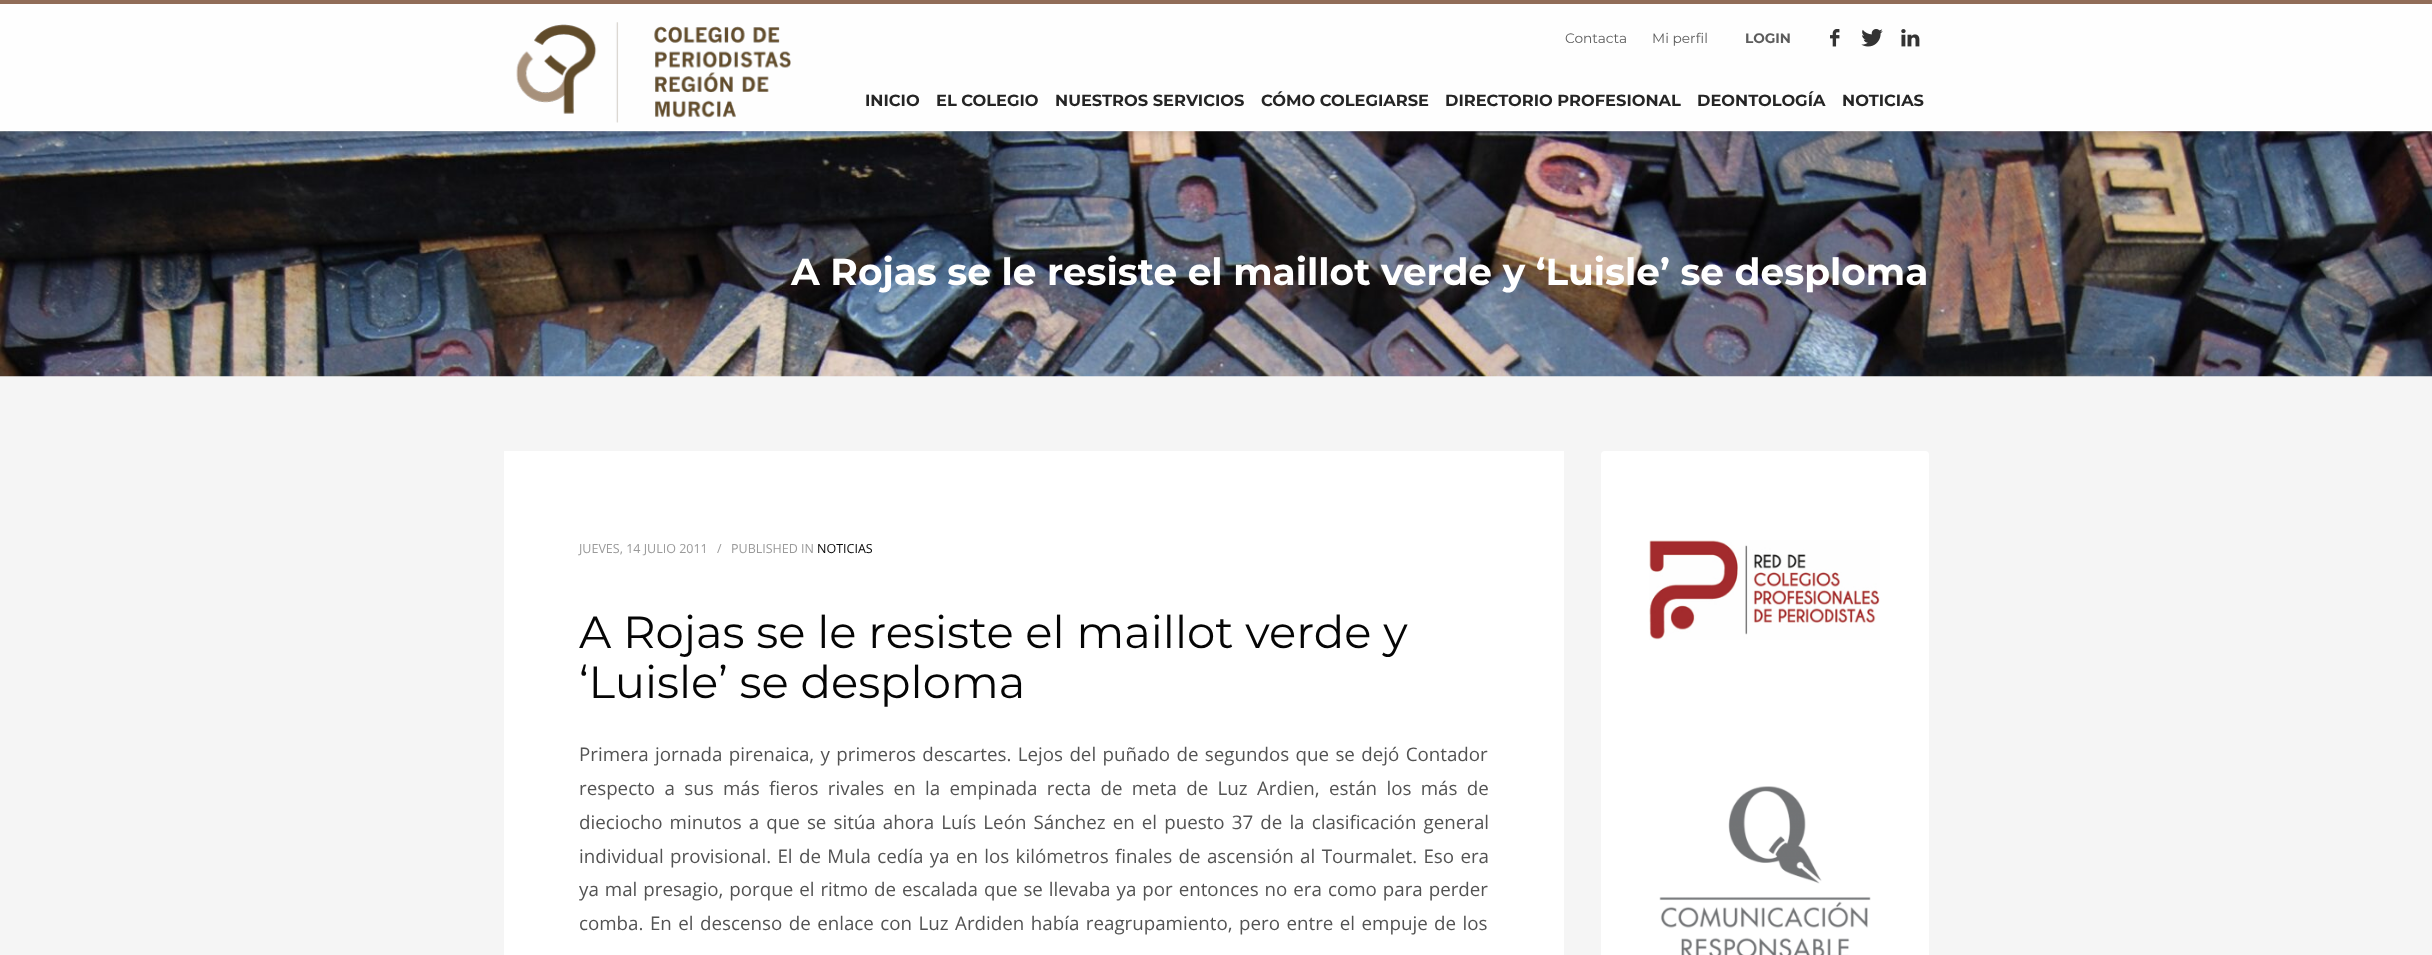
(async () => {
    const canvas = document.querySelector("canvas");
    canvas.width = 2432;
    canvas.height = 955;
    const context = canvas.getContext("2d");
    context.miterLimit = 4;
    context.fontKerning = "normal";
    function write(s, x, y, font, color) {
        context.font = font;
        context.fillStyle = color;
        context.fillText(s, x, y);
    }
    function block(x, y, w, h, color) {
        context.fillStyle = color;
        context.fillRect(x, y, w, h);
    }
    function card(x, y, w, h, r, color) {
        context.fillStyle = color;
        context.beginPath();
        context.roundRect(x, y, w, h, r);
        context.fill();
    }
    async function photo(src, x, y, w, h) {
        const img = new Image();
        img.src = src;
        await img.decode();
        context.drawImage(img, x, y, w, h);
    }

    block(0, 0, 2432, 955, "rgb(245, 245, 245)");
    await photo("media/5.png", 0, 131, 2432, 246);
    context.fillStyle = "rgba(0, 0, 0, 0.1)";
    context.filter = "blur(3px)";
    context.beginPath();
    context.rect(0, 4, 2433, 131);
    context.fill();
    context.filter = "none";
    block(0, 4, 2432, 127, "rgb(254, 254, 254)");
    block(0, 0, 2432, 4, "rgb(145, 109, 88)");
    await photo("media/1.png", 516, 22, 275, 101);
    write("Contacta", 1565, 43, "13.75px Montserrat", "rgb(92, 92, 92)");
    write("Mi perfil", 1652, 43, "13.75px Montserrat", "rgb(92, 92, 92)");
    write("LOGIN", 1745, 43, "bold 13.75px Montserrat", "rgb(92, 92, 92)");
    await photo("media/2.png", 1830, 29, 10, 18);
    await photo("media/3.png", 1861, 29, 22, 18);
    await photo("media/4.png", 1901, 29, 19, 18);
    write("INICIO", 865, 106, "bold 16.25px Montserrat", "rgb(37, 37, 37)");
    write("EL COLEGIO", 936, 106, "bold 16.25px Montserrat", "rgb(37, 37, 37)");
    write("NUESTROS SERVICIOS", 1055, 106, "bold 16.25px Montserrat", "rgb(37, 37, 37)");
    write("CÓMO COLEGIARSE", 1261, 106, "bold 16.25px Montserrat", "rgb(37, 37, 37)");
    write("DIRECTORIO PROFESIONAL", 1445, 106, "bold 16.25px Montserrat", "rgb(37, 37, 37)");
    write("DEONTOLOGÍA", 1697, 106, "bold 16.25px Montserrat", "rgb(37, 37, 37)");
    write("NOTICIAS", 1842, 106, "bold 16.25px Montserrat", "rgb(37, 37, 37)");
    write("A Rojas se le resiste el maillot verde y ‘Luisle’ se desploma", 791, 285, "bold 37.5px Montserrat", "rgb(255, 255, 255)");
    block(504, 451, 1060, 504, "rgb(255, 255, 255)");
    write("JUEVES, 14 JULIO 2011", 579, 553, "12.5px Open Sans", "rgb(154, 154, 154)");
    write("/", 717, 553, "12.5px Open Sans", "rgb(154, 154, 154)");
    write("PUBLISHED IN", 731, 553, "12.5px Open Sans", "rgb(154, 154, 154)");
    write("NOTICIAS", 817, 553, "12.5px Open Sans", "rgb(5, 5, 5)");
    write("A Rojas se le resiste el maillot verde y", 579, 648, "45px Montserrat", "rgb(5, 5, 5)");
    write("‘Luisle’ se desploma", 579, 698, "45px Montserrat", "rgb(5, 5, 5)");
    context.wordSpacing = "1.5px";
    write("Primera jornada pirenaica, y primeros descartes. Lejos del puñado de segundos que se dejó Contador", 579, 761, "18.75px Open Sans", "rgb(83, 83, 83)");
    context.wordSpacing = "4.5px";
    write("respecto a sus más fieros rivales en la empinada recta de meta de Luz Ardien, están los más de", 579, 795, "18.75px Open Sans", "rgb(83, 83, 83)");
    context.wordSpacing = "2.25px";
    write("dieciocho minutos a que se sitúa ahora Luís León Sánchez en el puesto 37 de la clasificación general", 579, 829, "18.75px Open Sans", "rgb(83, 83, 83)");
    context.wordSpacing = "1.5px";
    write("individual provisional. El de Mula cedía ya en los kilómetros finales de ascensión al Tourmalet. Eso era", 579, 863, "18.75px Open Sans", "rgb(83, 83, 83)");
    context.wordSpacing = "1.1px";
    write("ya mal presagio, porque el ritmo de escalada que se llevaba ya por entonces no era como para perder", 579, 896, "18.75px Open Sans", "rgb(83, 83, 83)");
    context.wordSpacing = "1.6px";
    write("comba. En el descenso de enlace con Luz Ardiden había reagrupamiento, pero entre el empuje de los", 579, 930, "18.75px Open Sans", "rgb(83, 83, 83)");
    card(1601, 451, 328, 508, 4, "rgb(255, 255, 255)");
    await photo("media/6.png", 1649, 540, 231, 100);
    await photo("media/7.png", 1659, 786, 212, 169);
})();
